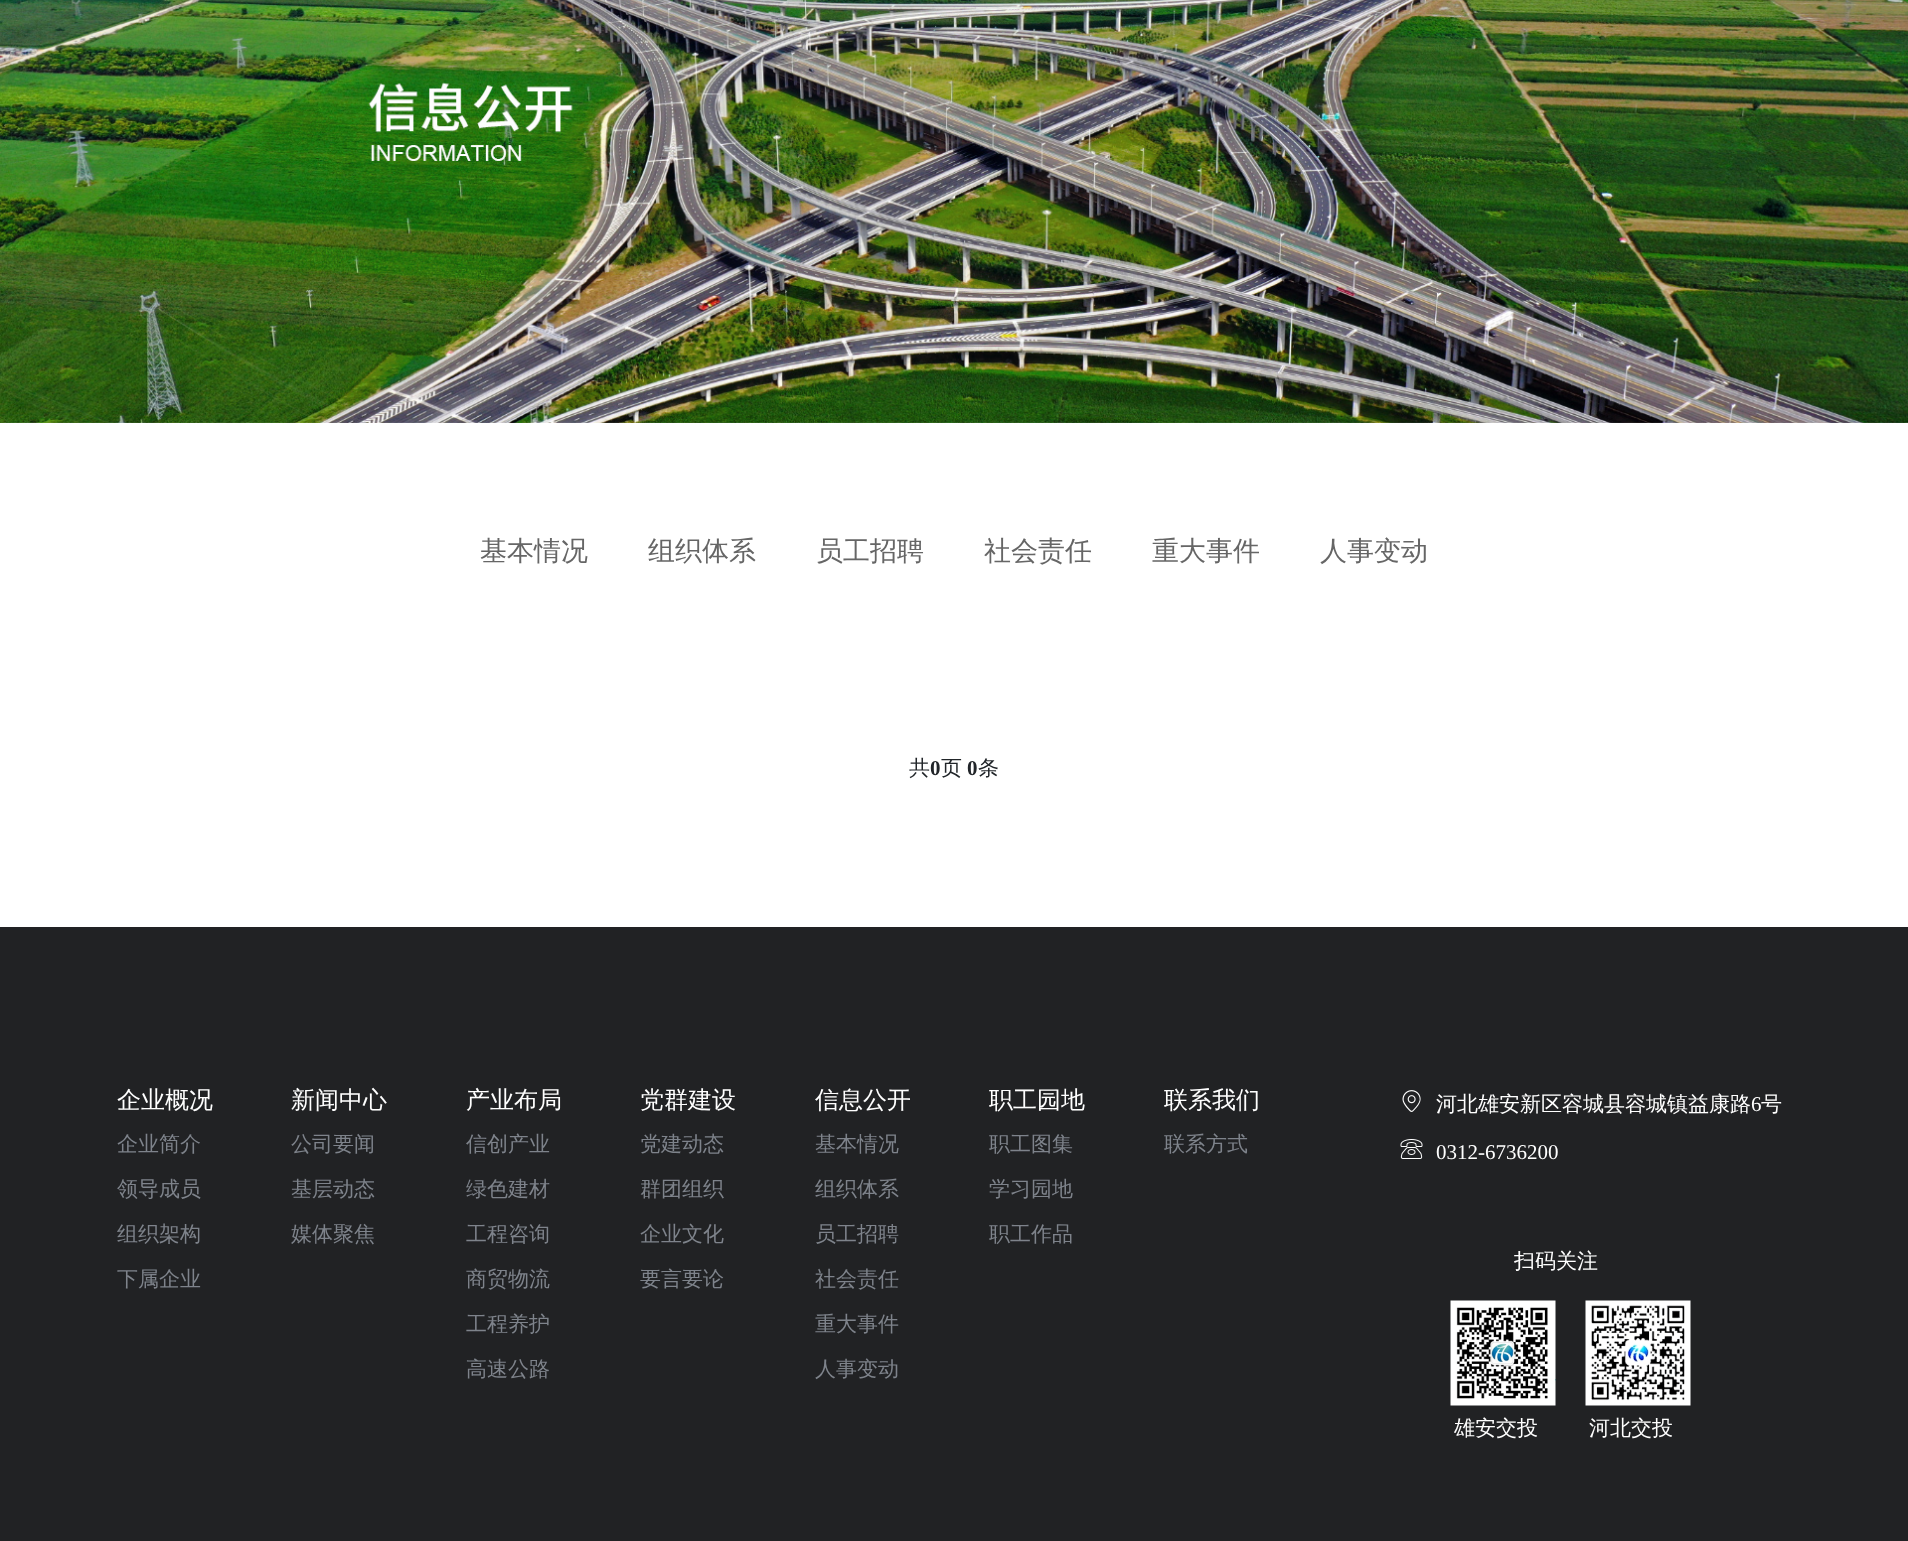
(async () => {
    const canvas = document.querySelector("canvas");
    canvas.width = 1908;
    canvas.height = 1541;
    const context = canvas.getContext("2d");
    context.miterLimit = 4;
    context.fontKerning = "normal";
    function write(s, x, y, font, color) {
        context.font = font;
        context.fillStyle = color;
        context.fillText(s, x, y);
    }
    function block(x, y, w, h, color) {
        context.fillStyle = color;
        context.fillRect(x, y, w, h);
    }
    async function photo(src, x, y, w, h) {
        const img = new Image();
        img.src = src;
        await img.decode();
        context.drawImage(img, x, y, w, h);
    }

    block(0, 0, 1908, 1541, "rgb(255, 255, 255)");
    await photo("media/1.png", 0, 0, 1908, 423);
    write("基本情况", 480, 560, "500 27px WenQuanYi Zen Hei", "rgb(102, 102, 102)");
    write("组织体系", 648, 560, "500 27px WenQuanYi Zen Hei", "rgb(102, 102, 102)");
    write("员工招聘", 816, 560, "500 27px WenQuanYi Zen Hei", "rgb(102, 102, 102)");
    write("社会责任", 984, 560, "500 27px WenQuanYi Zen Hei", "rgb(102, 102, 102)");
    write("重大事件", 1152, 560, "500 27px WenQuanYi Zen Hei", "rgb(102, 102, 102)");
    write("人事变动", 1320, 560, "500 27px WenQuanYi Zen Hei", "rgb(102, 102, 102)");
    write("共", 909, 775, "500 21px WenQuanYi Zen Hei", "rgb(33, 37, 41)");
    write("0", 930, 775, "bold 21px Liberation Serif", "rgb(33, 37, 41)");
    write("页", 941, 775, "500 21px WenQuanYi Zen Hei", "rgb(33, 37, 41)");
    write("0", 967, 775, "bold 21px Liberation Serif", "rgb(33, 37, 41)");
    write("条", 978, 775, "500 21px WenQuanYi Zen Hei", "rgb(33, 37, 41)");
    block(0, 927, 1908, 614, "rgb(33, 34, 36)");
    write("企业概况", 117, 1108, "500 24px WenQuanYi Zen Hei", "rgb(255, 255, 255)");
    write("企业简介", 117, 1151, "500 21px WenQuanYi Zen Hei", "rgb(126, 131, 139)");
    write("领导成员", 117, 1196, "500 21px WenQuanYi Zen Hei", "rgb(126, 131, 139)");
    write("组织架构", 117, 1241, "500 21px WenQuanYi Zen Hei", "rgb(126, 131, 139)");
    write("下属企业", 117, 1286, "500 21px WenQuanYi Zen Hei", "rgb(126, 131, 139)");
    write("新闻中心", 291, 1108, "500 24px WenQuanYi Zen Hei", "rgb(255, 255, 255)");
    write("公司要闻", 291, 1151, "500 21px WenQuanYi Zen Hei", "rgb(126, 131, 139)");
    write("基层动态", 291, 1196, "500 21px WenQuanYi Zen Hei", "rgb(126, 131, 139)");
    write("媒体聚焦", 291, 1241, "500 21px WenQuanYi Zen Hei", "rgb(126, 131, 139)");
    write("产业布局", 466, 1108, "500 24px WenQuanYi Zen Hei", "rgb(255, 255, 255)");
    write("信创产业", 466, 1151, "500 21px WenQuanYi Zen Hei", "rgb(126, 131, 139)");
    write("绿色建材", 466, 1196, "500 21px WenQuanYi Zen Hei", "rgb(126, 131, 139)");
    write("工程咨询", 466, 1241, "500 21px WenQuanYi Zen Hei", "rgb(126, 131, 139)");
    write("商贸物流", 466, 1286, "500 21px WenQuanYi Zen Hei", "rgb(126, 131, 139)");
    write("工程养护", 466, 1331, "500 21px WenQuanYi Zen Hei", "rgb(126, 131, 139)");
    write("高速公路", 466, 1376, "500 21px WenQuanYi Zen Hei", "rgb(126, 131, 139)");
    write("党群建设", 640, 1108, "500 24px WenQuanYi Zen Hei", "rgb(255, 255, 255)");
    write("党建动态", 640, 1151, "500 21px WenQuanYi Zen Hei", "rgb(126, 131, 139)");
    write("群团组织", 640, 1196, "500 21px WenQuanYi Zen Hei", "rgb(126, 131, 139)");
    write("企业文化", 640, 1241, "500 21px WenQuanYi Zen Hei", "rgb(126, 131, 139)");
    write("要言要论", 640, 1286, "500 21px WenQuanYi Zen Hei", "rgb(126, 131, 139)");
    write("信息公开", 815, 1108, "500 24px WenQuanYi Zen Hei", "rgb(255, 255, 255)");
    write("基本情况", 815, 1151, "500 21px WenQuanYi Zen Hei", "rgb(126, 131, 139)");
    write("组织体系", 815, 1196, "500 21px WenQuanYi Zen Hei", "rgb(126, 131, 139)");
    write("员工招聘", 815, 1241, "500 21px WenQuanYi Zen Hei", "rgb(126, 131, 139)");
    write("社会责任", 815, 1286, "500 21px WenQuanYi Zen Hei", "rgb(126, 131, 139)");
    write("重大事件", 815, 1331, "500 21px WenQuanYi Zen Hei", "rgb(126, 131, 139)");
    write("人事变动", 815, 1376, "500 21px WenQuanYi Zen Hei", "rgb(126, 131, 139)");
    write("职工园地", 989, 1108, "500 24px WenQuanYi Zen Hei", "rgb(255, 255, 255)");
    write("职工图集", 989, 1151, "500 21px WenQuanYi Zen Hei", "rgb(126, 131, 139)");
    write("学习园地", 989, 1196, "500 21px WenQuanYi Zen Hei", "rgb(126, 131, 139)");
    write("职工作品", 989, 1241, "500 21px WenQuanYi Zen Hei", "rgb(126, 131, 139)");
    write("联系我们", 1164, 1108, "500 24px WenQuanYi Zen Hei", "rgb(255, 255, 255)");
    write("联系方式", 1164, 1151, "500 21px WenQuanYi Zen Hei", "rgb(126, 131, 139)");
    await photo("media/2.png", 1402, 1090, 19, 22);
    write("河北雄安新区容城县容城镇益康路", 1436, 1111, "500 21px WenQuanYi Zen Hei", "rgb(255, 255, 255)");
    write("6", 1751, 1111, "21px Liberation Serif", "rgb(255, 255, 255)");
    write("号", 1761, 1111, "500 21px WenQuanYi Zen Hei", "rgb(255, 255, 255)");
    await photo("media/3.png", 1400, 1139, 23, 20);
    write("0312-6736200", 1436, 1159, "21px Liberation Serif", "rgb(255, 255, 255)");
    write("扫码关注", 1514, 1268, "500 21px WenQuanYi Zen Hei", "rgb(255, 255, 255)");
    await photo("media/4.png", 1450, 1300, 106, 106);
    write("雄安交投", 1454, 1435, "500 21px WenQuanYi Zen Hei", "rgb(255, 255, 255)");
    await photo("media/5.png", 1585, 1300, 106, 106);
    write("河北交投", 1589, 1435, "500 21px WenQuanYi Zen Hei", "rgb(255, 255, 255)");
})();
